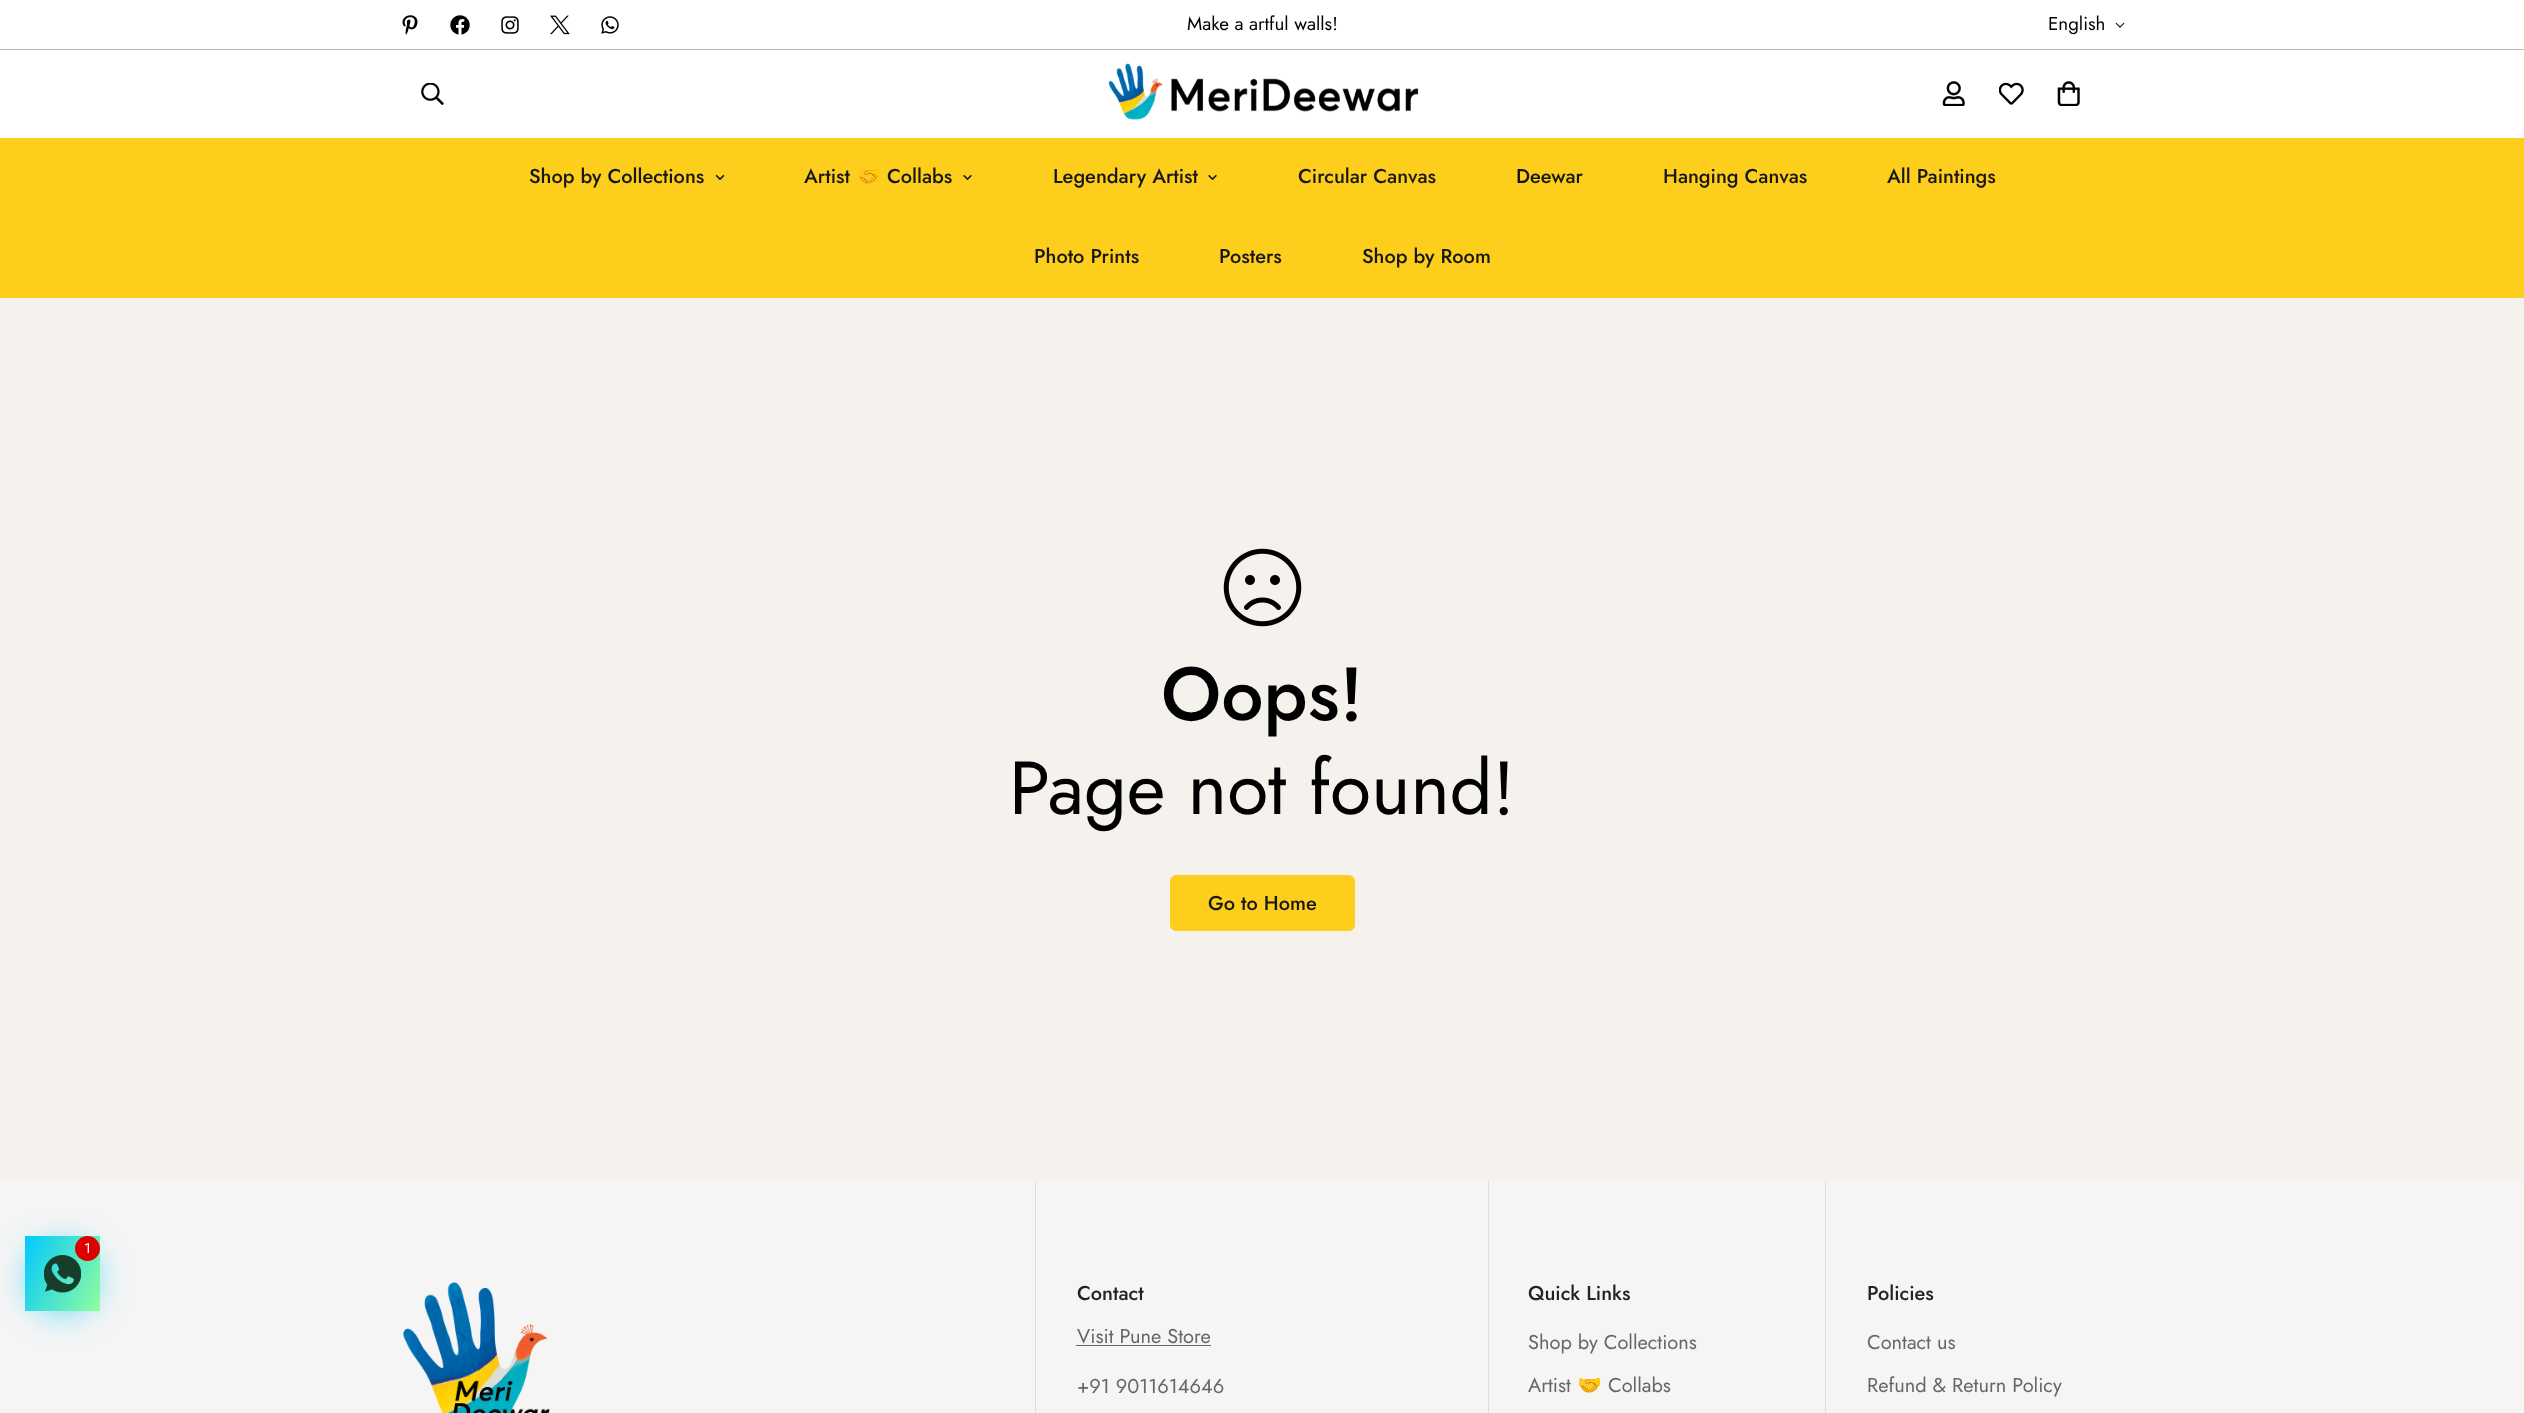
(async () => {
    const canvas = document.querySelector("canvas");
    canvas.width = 2524;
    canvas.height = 1413;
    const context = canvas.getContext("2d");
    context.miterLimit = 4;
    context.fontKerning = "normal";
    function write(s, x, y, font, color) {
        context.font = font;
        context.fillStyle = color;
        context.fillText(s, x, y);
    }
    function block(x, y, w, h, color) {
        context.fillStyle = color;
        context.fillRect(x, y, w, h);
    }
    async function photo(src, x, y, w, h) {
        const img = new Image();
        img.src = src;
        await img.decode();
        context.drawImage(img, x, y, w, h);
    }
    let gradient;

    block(0, 0, 2524, 1413, "rgb(255, 255, 255)");
    block(0, 49, 2524, 1, "rgb(187, 187, 187)");
    await photo("media/1.png", 402, 15, 16, 20);
    await photo("media/2.png", 450, 15, 20, 20);
    await photo("media/3.png", 501, 16, 18, 18);
    await photo("media/4.png", 550, 15, 20, 20);
    await photo("media/5.png", 601, 16, 18, 18);
    write("Make a artful walls!", 1187, 30, "18.75px Jost", "rgb(0, 0, 0)");
    write("English", 2048, 30, "18.75px Jost", "rgb(0, 0, 0)");
    await photo("media/6.png", 2115, 22, 10, 6);
    await photo("media/7.png", 421, 83, 23, 22);
    await photo("media/8.png", 1108, 63, 311, 57);
    await photo("media/9.png", 1942, 81, 23, 25);
    await photo("media/10.png", 1999, 82, 25, 23);
    await photo("media/11.png", 2057, 81, 23, 25);
    block(0, 138, 2524, 160, "rgb(253, 206, 28)");
    write("Shop by Collections", 529, 183, "500 20px Jost", "rgb(23, 23, 23)");
    await photo("media/12.png", 715, 175, 10, 5);
    write("Artist", 804, 183, "500 20px Jost", "rgb(23, 23, 23)");
    write("🤝", 856, 183, "20px Noto Color Emoji", "rgb(23, 23, 23)");
    write("Collabs", 887, 183, "500 20px Jost", "rgb(23, 23, 23)");
    await photo("media/13.png", 963, 175, 9, 5);
    write("Legendary Artist", 1053, 183, "500 20px Jost", "rgb(23, 23, 23)");
    await photo("media/13.png", 1208, 175, 9, 5);
    write("Circular Canvas", 1298, 183, "500 20px Jost", "rgb(23, 23, 23)");
    write("Deewar", 1516, 183, "500 20px Jost", "rgb(23, 23, 23)");
    write("Hanging Canvas", 1663, 183, "500 20px Jost", "rgb(23, 23, 23)");
    write("All Paintings", 1887, 183, "500 20px Jost", "rgb(23, 23, 23)");
    write("Photo Prints", 1034, 263, "500 20px Jost", "rgb(23, 23, 23)");
    write("Posters", 1219, 263, "500 20px Jost", "rgb(23, 23, 23)");
    write("Shop by Room", 1362, 263, "500 20px Jost", "rgb(23, 23, 23)");
    block(0, 298, 2524, 883, "rgb(245, 241, 237)");
    await photo("media/14.png", 1223, 548, 79, 79);
    write("Oops!", 1161, 720, "500 75px Jost", "rgb(0, 0, 0)");
    write("Page not found!", 1009, 814, "75px Jost", "rgb(0, 0, 0)");
    context.fillStyle = "rgb(253, 206, 28)";
    context.beginPath();
    context.roundRect(1170.5, 875.5, 184, 55, 5.5);
    context.fill();
    context.strokeStyle = "rgb(253, 206, 28)";
    context.stroke();
    write("Go to Home", 1208, 910, "500 20px Jost", "rgb(23, 23, 23)");
    block(0, 1181, 2524, 232, "rgb(245, 245, 245)");
    context.fillStyle = "rgba(0, 201, 255, 0.5)";
    context.filter = "blur(15px)";
    context.beginPath();
    context.roundRect(25, 1241, 75, 75, 37.5);
    context.fill();
    context.filter = "none";
    gradient = context.createLinearGradient(17, 1253, 108, 1295);
    gradient.addColorStop(0, "rgb(0, 201, 255)");
    gradient.addColorStop(1, "rgb(146, 254, 157)");
    context.fillStyle = gradient;
    context.fillRect(25, 1236, 75, 75);
    await photo("media/15.png", 44, 1255, 37, 38);
    context.fillStyle = "rgb(221, 0, 0)";
    context.beginPath();
    context.arc(87.5, 1248.5, 12.5, 0, Math.PI * 2);
    context.fill();
    write("1", 84, 1253, "14px Roboto", "rgb(255, 255, 255)");
    block(1035, 1181, 1, 232, "rgb(222, 222, 222)");
    await photo("media/16.png", 403, 1282, 147, 131);
    block(1488, 1181, 1, 232, "rgb(222, 222, 222)");
    write("Contact", 1077, 1300, "500 20px Jost", "rgb(34, 34, 34)");
    write("Visit Pune Store", 1077, 1343, "20px Jost", "rgb(102, 102, 102)");
    block(1076, 1345, 135, 1, "rgb(102, 102, 102)");
    write("+91 9011614646", 1077, 1393, "20px Jost", "rgb(102, 102, 102)");
    block(1825, 1181, 1, 232, "rgb(222, 222, 222)");
    write("Quick Links", 1528, 1300, "500 20px Jost", "rgb(34, 34, 34)");
    write("Shop by Collections", 1528, 1349, "20px Jost", "rgb(102, 102, 102)");
    write("Artist", 1528, 1392, "20px Jost", "rgb(102, 102, 102)");
    write("🤝", 1577, 1392, "20px Noto Color Emoji", "rgb(102, 102, 102)");
    write("Collabs", 1608, 1392, "20px Jost", "rgb(102, 102, 102)");
    write("Policies", 1867, 1300, "500 20px Jost", "rgb(34, 34, 34)");
    write("Contact us", 1867, 1349, "20px Jost", "rgb(102, 102, 102)");
    write("Refund & Return Policy", 1867, 1392, "20px Jost", "rgb(102, 102, 102)");
})();
